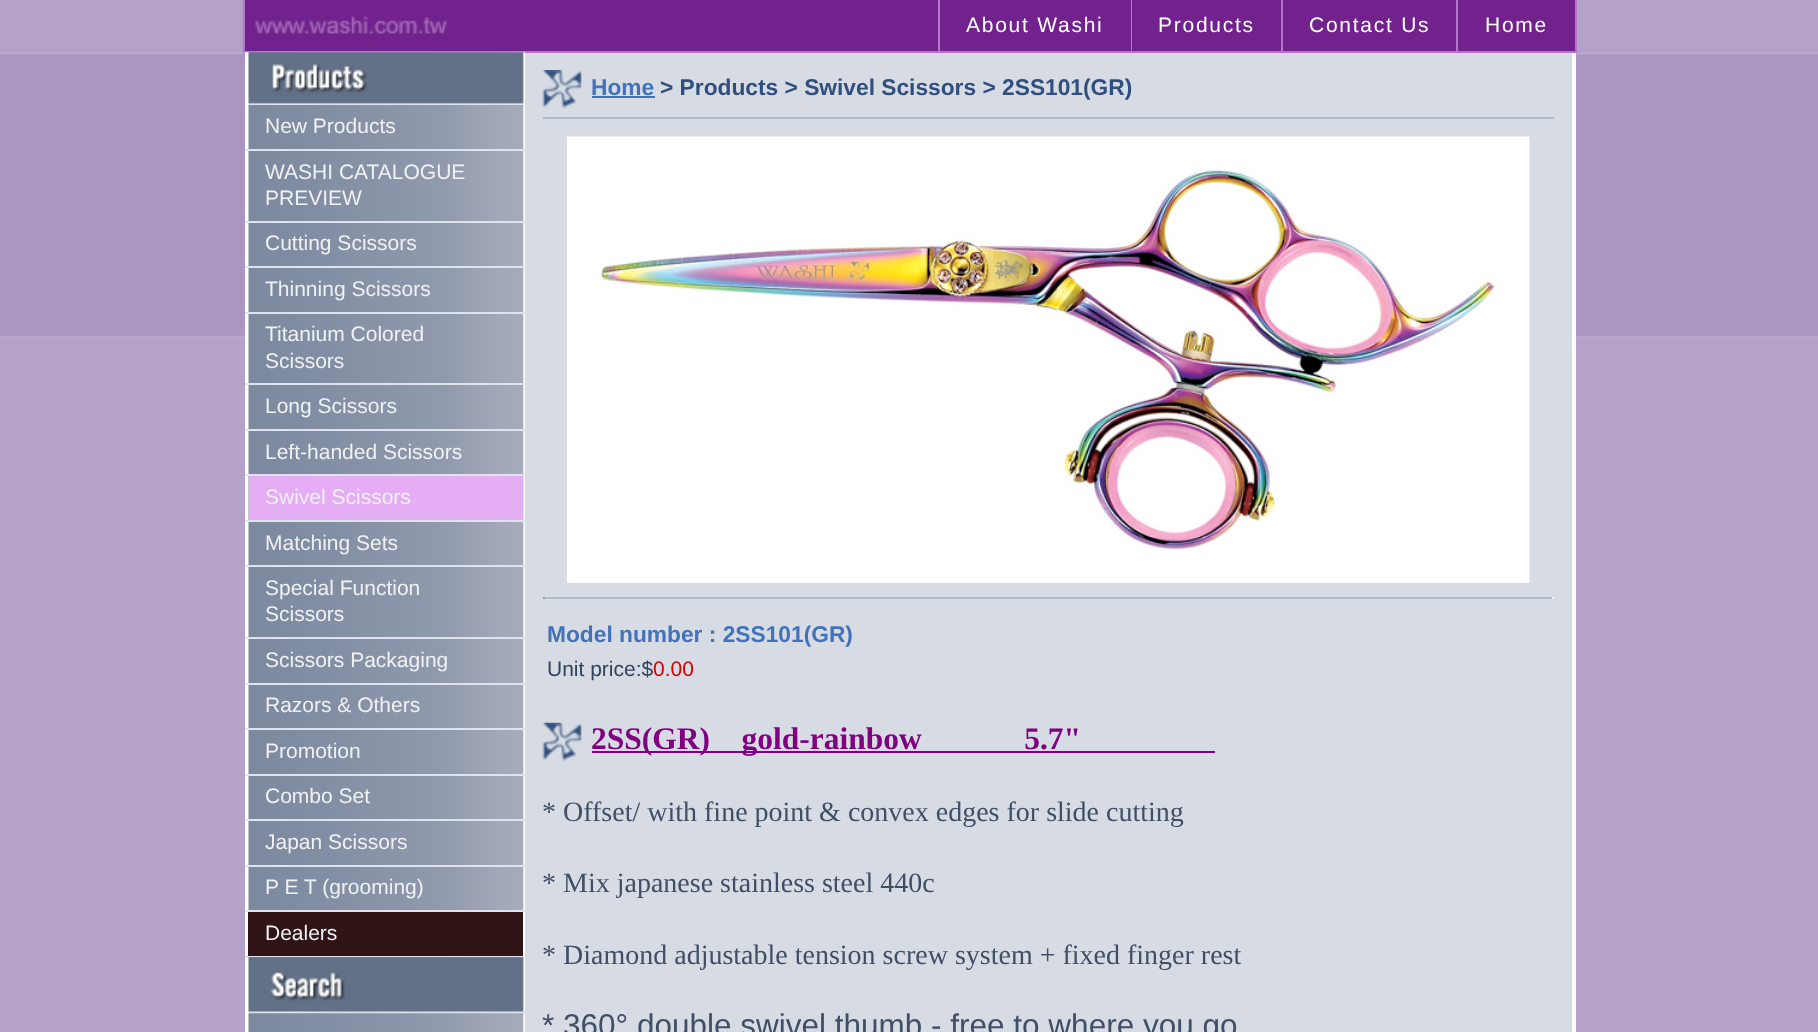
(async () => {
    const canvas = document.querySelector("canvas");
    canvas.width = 1818;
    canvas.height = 1032;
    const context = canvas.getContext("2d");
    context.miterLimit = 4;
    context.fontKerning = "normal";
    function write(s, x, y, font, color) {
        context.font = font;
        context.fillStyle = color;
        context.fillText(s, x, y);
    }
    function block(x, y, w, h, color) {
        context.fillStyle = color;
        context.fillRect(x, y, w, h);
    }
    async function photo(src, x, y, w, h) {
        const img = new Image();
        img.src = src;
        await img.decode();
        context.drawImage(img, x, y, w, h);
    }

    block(0, 0, 1818, 1032, "rgb(255, 255, 255)");
    await photo("media/1.png", 0, 0, 1818, 1032);
    block(245, 0, 1330, 51, "rgb(114, 34, 141)");
    block(1575, 0, 2, 53, "rgb(181, 115, 203)");
    block(243, 51, 1334, 2, "rgb(181, 115, 203)");
    block(243, 0, 2, 53, "rgb(181, 115, 203)");
    await photo("media/2.png", 255, 15, 192, 19);
    block(938, 0, 2, 51, "rgb(181, 115, 203)");
    context.letterSpacing = "1.75px";
    write("About Washi", 966, 32, "21px Liberation Sans", "rgb(255, 255, 255)");
    block(1131, 0, 1, 51, "rgb(181, 115, 203)");
    write("Products", 1158, 32, "21px Liberation Sans", "rgb(255, 255, 255)");
    block(1281, 0, 2, 51, "rgb(181, 115, 203)");
    write("Contact Us", 1309, 32, "21px Liberation Sans", "rgb(255, 255, 255)");
    block(1456, 0, 2, 51, "rgb(181, 115, 203)");
    write("Home", 1485, 32, "21px Liberation Sans", "rgb(255, 255, 255)");
    await photo("media/3.png", 245, 52, 280, 980);
    await photo("media/4.png", 245, 52, 280, 53);
    block(245, 149, 280, 2, "rgb(222, 227, 239)");
    context.letterSpacing = "0px";
    write("New Products", 265, 133, "21px Liberation Sans", "rgb(239, 241, 243)");
    block(245, 221, 280, 2, "rgb(222, 227, 239)");
    write("WASHI CATALOGUE", 265, 179, "21px Liberation Sans", "rgb(239, 241, 243)");
    write("PREVIEW", 265, 205, "21px Liberation Sans", "rgb(239, 241, 243)");
    block(245, 266, 280, 2, "rgb(222, 227, 239)");
    write("Cutting Scissors", 265, 250, "21px Liberation Sans", "rgb(239, 241, 243)");
    block(245, 312, 280, 2, "rgb(222, 227, 239)");
    write("Thinning Scissors", 265, 296, "21px Liberation Sans", "rgb(239, 241, 243)");
    block(245, 383, 280, 2, "rgb(222, 227, 239)");
    write("Titanium Colored", 265, 341, "21px Liberation Sans", "rgb(239, 241, 243)");
    write("Scissors", 265, 368, "21px Liberation Sans", "rgb(239, 241, 243)");
    block(245, 429, 280, 2, "rgb(222, 227, 239)");
    write("Long Scissors", 265, 413, "21px Liberation Sans", "rgb(239, 241, 243)");
    block(245, 474, 280, 2, "rgb(222, 227, 239)");
    write("Left-handed Scissors", 265, 459, "21px Liberation Sans", "rgb(239, 241, 243)");
    block(245, 520, 280, 2, "rgb(222, 227, 239)");
    block(249, 476, 274, 44, "rgb(229, 173, 243)");
    write("Swivel Scissors", 265, 504, "21px Liberation Sans", "rgb(239, 241, 243)");
    block(245, 565, 280, 2, "rgb(222, 227, 239)");
    write("Matching Sets", 265, 550, "21px Liberation Sans", "rgb(239, 241, 243)");
    block(245, 637, 280, 2, "rgb(222, 227, 239)");
    write("Special Function", 265, 595, "21px Liberation Sans", "rgb(239, 241, 243)");
    write("Scissors", 265, 621, "21px Liberation Sans", "rgb(239, 241, 243)");
    block(245, 683, 280, 2, "rgb(222, 227, 239)");
    write("Scissors Packaging", 265, 667, "21px Liberation Sans", "rgb(239, 241, 243)");
    block(245, 728, 280, 2, "rgb(222, 227, 239)");
    write("Razors & Others", 265, 712, "21px Liberation Sans", "rgb(239, 241, 243)");
    block(245, 774, 280, 2, "rgb(222, 227, 239)");
    write("Promotion", 265, 758, "21px Liberation Sans", "rgb(239, 241, 243)");
    block(245, 819, 280, 2, "rgb(222, 227, 239)");
    write("Combo Set", 265, 803, "21px Liberation Sans", "rgb(239, 241, 243)");
    block(245, 865, 280, 2, "rgb(222, 227, 239)");
    write("Japan Scissors", 265, 849, "21px Liberation Sans", "rgb(239, 241, 243)");
    block(245, 910, 280, 2, "rgb(222, 227, 239)");
    write("P E T (grooming)", 265, 894, "21px Liberation Sans", "rgb(239, 241, 243)");
    block(245, 912, 278, 45, "rgb(47, 20, 22)");
    block(523, 912, 1, 45, "rgb(255, 255, 255)");
    context.fillStyle = "rgb(222, 227, 239)";
    context.beginPath();
    context.moveTo(525, 957);
    context.lineTo(245, 957);
    context.lineTo(248, 956);
    context.lineTo(523, 956);
    context.closePath();
    context.fill();
    context.fillStyle = "rgb(255, 255, 255)";
    context.beginPath();
    context.moveTo(245, 957);
    context.lineTo(245, 912);
    context.lineTo(248, 912);
    context.lineTo(248, 956);
    context.closePath();
    context.fill();
    write("Dealers", 265, 940, "21px Liberation Sans", "rgb(239, 241, 243)");
    await photo("media/5.png", 248, 957, 277, 57);
    block(525, 53, 1047, 979, "rgb(215, 220, 228)");
    block(1572, 53, 4, 979, "rgb(255, 255, 255)");
    block(543, 117, 1011, 2, "rgb(177, 188, 204)");
    await photo("media/6.png", 542, 70, 40, 39);
    write("Home", 591, 95, "bold 22.75px Liberation Sans", "rgb(66, 114, 186)");
    block(592, 96, 63, 2, "rgb(66, 114, 186)");
    write("> Products > Swivel Scissors > 2SS101(GR)", 660, 95, "bold 22.75px Liberation Sans", "rgb(48, 79, 126)");
    await photo("media/7.png", 567, 136, 963, 447);
    block(543, 597, 1011, 2, "rgb(177, 188, 204)");
    block(1552, 597, 2, 2, "rgb(238, 238, 238)");
    block(543, 597, 2, 2, "rgb(159, 159, 159)");
    write("Model number : 2SS101(GR)", 547, 642, "bold 22.75px Liberation Sans", "rgb(66, 114, 186)");
    write("Unit price:$", 547, 676, "21px Liberation Sans", "rgb(50, 66, 90)");
    write("0.00", 653, 676, "21px Liberation Sans", "rgb(217, 0, 0)");
    await photo("media/8.png", 542, 722, 40, 40);
    block(592, 751, 623, 2, "rgb(128, 0, 128)");
    write("2SS(GR)    gold-rainbow             5.7\"", 591, 749, "bold 31.5px Liberation Serif", "rgb(128, 0, 128)");
    write("* Offset/ with fine point & convex edges for slide cutting", 542, 821, "28px Liberation Serif", "rgb(64, 79, 102)");
    write("* Mix japanese stainless steel 440c", 542, 892, "28px Liberation Serif", "rgb(64, 79, 102)");
    write("* Diamond adjustable tension screw system + fixed finger rest", 542, 964, "28px Liberation Serif", "rgb(64, 79, 102)");
    write("* 360° double swivel thumb - free to where you go", 542, 1036, "31.5px Liberation Sans", "rgb(64, 79, 102)");
})();
